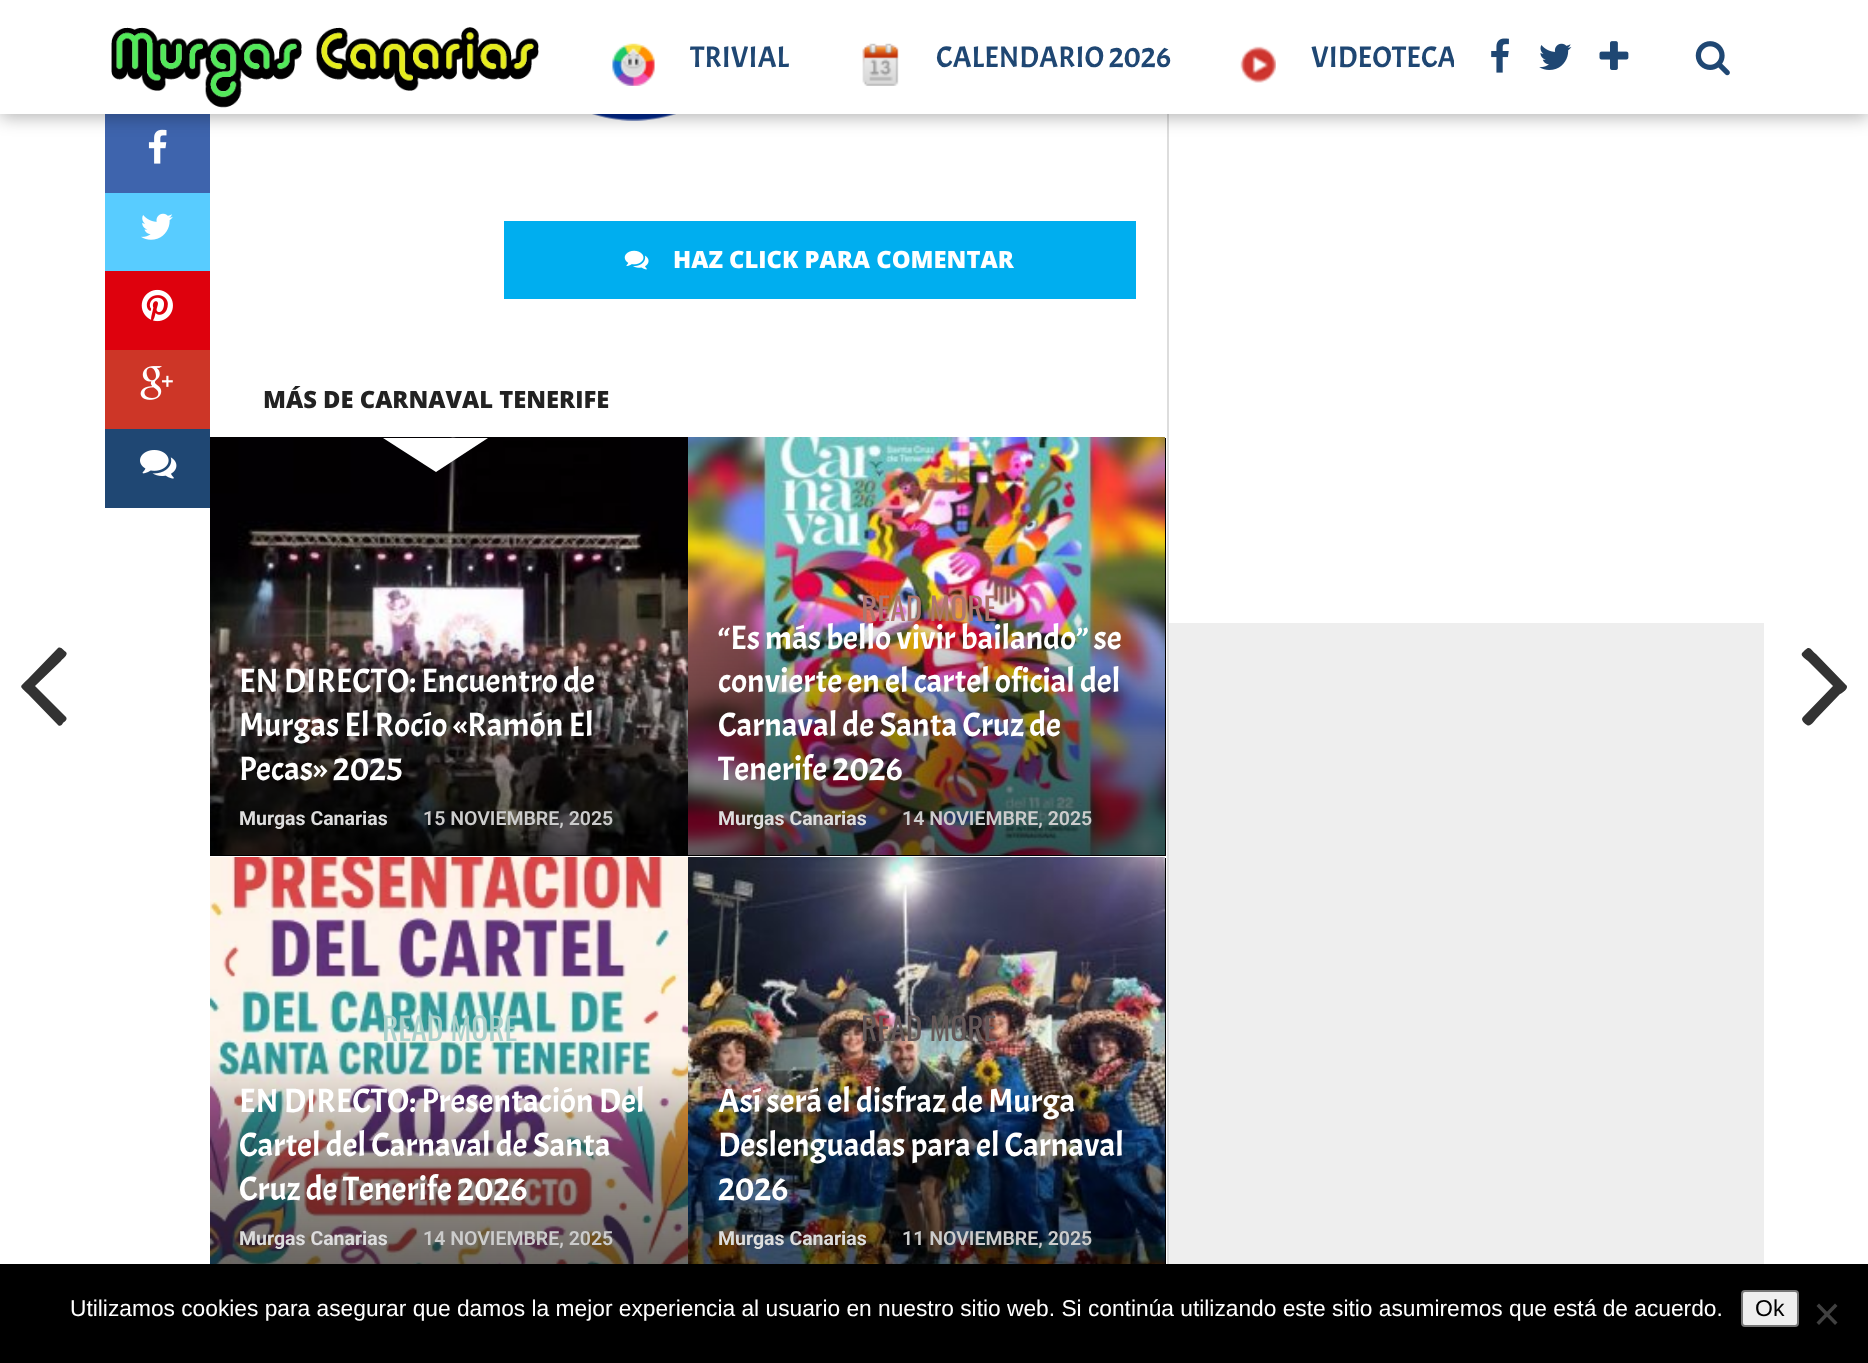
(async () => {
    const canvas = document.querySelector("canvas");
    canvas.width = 1868;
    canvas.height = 1363;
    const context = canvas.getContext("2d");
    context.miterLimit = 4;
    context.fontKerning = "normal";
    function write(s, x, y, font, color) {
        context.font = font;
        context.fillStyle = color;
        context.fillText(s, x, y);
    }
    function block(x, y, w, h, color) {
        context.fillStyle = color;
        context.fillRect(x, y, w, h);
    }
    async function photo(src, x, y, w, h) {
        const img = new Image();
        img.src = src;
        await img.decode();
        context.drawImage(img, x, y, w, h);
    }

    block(0, 0, 1868, 1363, "rgb(255, 255, 255)");
    block(105, 114, 105, 79, "rgb(62, 100, 173)");
    await photo("media/9.png", 148, 129, 19, 35);
    await photo("media/14.png", 592, 114, 84, 7);
    block(1167, 114, 2, 1150, "rgb(221, 221, 221)");
    context.fillStyle = "rgba(0, 0, 0, 0.3)";
    context.filter = "blur(9px)";
    context.beginPath();
    context.rect(0, 4, 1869, 113);
    context.fill();
    context.filter = "none";
    block(0, 0, 1454, 114, "rgb(255, 255, 255)");
    await photo("media/1.png", 111, 27, 428, 81);
    write("VIDEOTECA", 1311, 67, "29.75px Acme", "rgb(31, 71, 115)");
    block(1454, 0, 414, 114, "rgb(255, 255, 255)");
    await photo("media/2.png", 612, 43, 43, 43);
    write("TRIVIAL", 690, 67, "29.75px Acme", "rgb(31, 71, 115)");
    await photo("media/3.png", 862, 43, 37, 43);
    write("CALENDARIO 2026", 936, 67, "29.75px Acme", "rgb(31, 71, 115)");
    await photo("media/4.png", 1240, 46, 36, 37);
    await photo("media/5.png", 1491, 38, 18, 35);
    await photo("media/6.png", 1539, 43, 33, 27);
    await photo("media/7.png", 1599, 41, 30, 29);
    await photo("media/8.png", 1695, 41, 35, 35);
    block(105, 193, 105, 78, "rgb(88, 204, 255)");
    await photo("media/10.png", 141, 213, 32, 27);
    block(105, 271, 105, 79, "rgb(222, 1, 13)");
    await photo("media/11.png", 141, 289, 32, 33);
    block(105, 350, 105, 79, "rgb(205, 54, 39)");
    await photo("media/12.png", 140, 366, 33, 34);
    block(105, 429, 105, 79, "rgb(31, 71, 115)");
    await photo("media/13.png", 140, 450, 37, 29);
    block(504, 221, 632, 78, "rgb(0, 174, 239)");
    await photo("media/15.png", 624, 250, 25, 20);
    write("HAZ CLICK PARA COMENTAR", 673, 268, "800 23.75px Open Sans", "rgb(255, 255, 255)");
    block(1169, 623, 595, 641, "rgb(238, 238, 238)");
    write("MÁS DE CARNAVAL TENERIFE", 263, 408, "800 23.75px Open Sans", "rgb(34, 34, 34)");
    await photo("media/16.png", 210, 437, 478, 418);
    context.fillStyle = "rgb(255, 255, 255)";
    context.beginPath();
    context.moveTo(383, 438);
    context.lineTo(488, 438);
    context.lineTo(436, 472);
    context.closePath();
    context.fill();
    block(210, 855, 478, 1, "rgb(0, 0, 0)");
    write("EN DIRECTO: Encuentro de", 239, 692, "33.6px Acme", "rgb(255, 255, 255)");
    write("Murgas El Rocío «Ramón El", 239, 736, "33.6px Acme", "rgb(255, 255, 255)");
    write("Pecas» 2025", 239, 780, "33.6px Acme", "rgb(255, 255, 255)");
    write("Murgas Canarias", 239, 825, "bold 19.5px Roboto", "rgb(221, 221, 221)");
    write("15 NOVIEMBRE, 2025", 423, 825, "600 19.5px Roboto", "rgb(204, 204, 204)");
    block(688, 438, 478, 418, "rgb(0, 0, 0)");
    await photo("media/17.png", 688, 437, 477, 418);
    write("READ MORE", 861, 621, "31.5px Oswald", "rgb(174, 118, 111)");
    write("“Es más bello vivir bailando” se", 718, 649, "33.6px Acme", "rgb(255, 255, 255)");
    write("convierte en el cartel oficial del", 718, 692, "33.6px Acme", "rgb(255, 255, 255)");
    write("Carnaval de Santa Cruz de", 718, 736, "33.6px Acme", "rgb(255, 255, 255)");
    write("Tenerife 2026", 718, 780, "33.6px Acme", "rgb(255, 255, 255)");
    write("Murgas Canarias", 718, 825, "bold 19.5px Roboto", "rgb(221, 221, 221)");
    write("14 NOVIEMBRE, 2025", 902, 825, "600 19.5px Roboto", "rgb(204, 204, 204)");
    await photo("media/18.png", 210, 857, 478, 407);
    write("READ MORE", 382, 1041, "31.5px Oswald", "rgb(170, 208, 203)");
    write("EN DIRECTO: Presentación Del", 239, 1112, "33.6px Acme", "rgb(255, 255, 255)");
    write("Cartel del Carnaval de Santa", 239, 1156, "33.6px Acme", "rgb(255, 255, 255)");
    write("Cruz de Tenerife 2026", 239, 1200, "33.6px Acme", "rgb(255, 255, 255)");
    write("Murgas Canarias", 239, 1245, "bold 19.5px Roboto", "rgb(221, 221, 221)");
    write("14 NOVIEMBRE, 2025", 423, 1245, "600 19.5px Roboto", "rgb(204, 204, 204)");
    block(1165, 858, 1, 406, "rgb(0, 0, 0)");
    await photo("media/19.png", 688, 857, 477, 407);
    write("READ MORE", 861, 1041, "31.5px Oswald", "rgb(101, 89, 89)");
    write("Así será el disfraz de Murga", 718, 1112, "33.6px Acme", "rgb(255, 255, 255)");
    write("Deslenguadas para el Carnaval", 718, 1156, "33.6px Acme", "rgb(255, 255, 255)");
    write("2026", 718, 1200, "33.6px Acme", "rgb(255, 255, 255)");
    write("Murgas Canarias", 718, 1245, "bold 19.5px Roboto", "rgb(221, 221, 221)");
    write("11 NOVIEMBRE, 2025", 902, 1245, "600 19.5px Roboto", "rgb(204, 204, 204)");
    context.fillStyle = "rgb(51, 51, 51)";
    context.beginPath();
    context.moveTo(66, 652);
    context.bezierCurveTo(69, 655, 61, 660, 61, 661);
    context.lineTo(35, 686);
    context.lineTo(66, 717);
    context.bezierCurveTo(68, 720, 64, 722, 63, 723);
    context.bezierCurveTo(62, 725, 60, 727, 58, 725);
    context.lineTo(28, 694);
    context.bezierCurveTo(19, 685, 19, 688, 28, 679);
    context.lineTo(58, 648);
    context.bezierCurveTo(61, 646, 64, 651, 66, 652);
    context.closePath();
    context.fill();
    context.beginPath();
    context.moveTo(1846, 685);
    context.bezierCurveTo(1850, 688, 1841, 694, 1840, 694);
    context.lineTo(1816, 719);
    context.bezierCurveTo(1816, 719, 1810, 728, 1807, 725);
    context.bezierCurveTo(1805, 724, 1800, 720, 1803, 717);
    context.lineTo(1833, 686);
    context.lineTo(1808, 661);
    context.bezierCurveTo(1807, 660, 1800, 656, 1802, 653);
    context.lineTo(1805, 650);
    context.bezierCurveTo(1810, 645, 1811, 650, 1816, 654);
    context.closePath();
    context.fill();
    block(0, 1264, 1868, 99, "rgb(0, 0, 0)");
    write("Utilizamos cookies para asegurar que damos la mejor experiencia al usuario en nuestro sitio web. Si continúa utilizando este sitio asumiremos que está de acuerdo.", 70, 1316, "22.75px Liberation Sans", "rgb(255, 255, 255)");
    context.fillStyle = "rgb(239, 239, 239)";
    context.beginPath();
    context.roundRect(1742, 1291, 56, 35, 3);
    context.fill();
    context.strokeStyle = "rgb(118, 118, 118)";
    context.lineWidth = 2;
    context.stroke();
    write("Ok", 1755, 1316, "23px Liberation Sans", "rgb(0, 0, 0)");
    context.fillStyle = "rgb(64, 64, 64)";
    context.beginPath();
    context.moveTo(1835, 1303.5);
    context.lineTo(1837.5, 1306);
    context.lineTo(1819, 1325);
    context.lineTo(1816.5, 1322.5);
    context.closePath();
    context.fill();
    context.beginPath();
    context.moveTo(1816.5, 1306);
    context.lineTo(1819, 1303.5);
    context.lineTo(1837.5, 1322.5);
    context.lineTo(1835, 1325);
    context.closePath();
    context.fill();
})();
